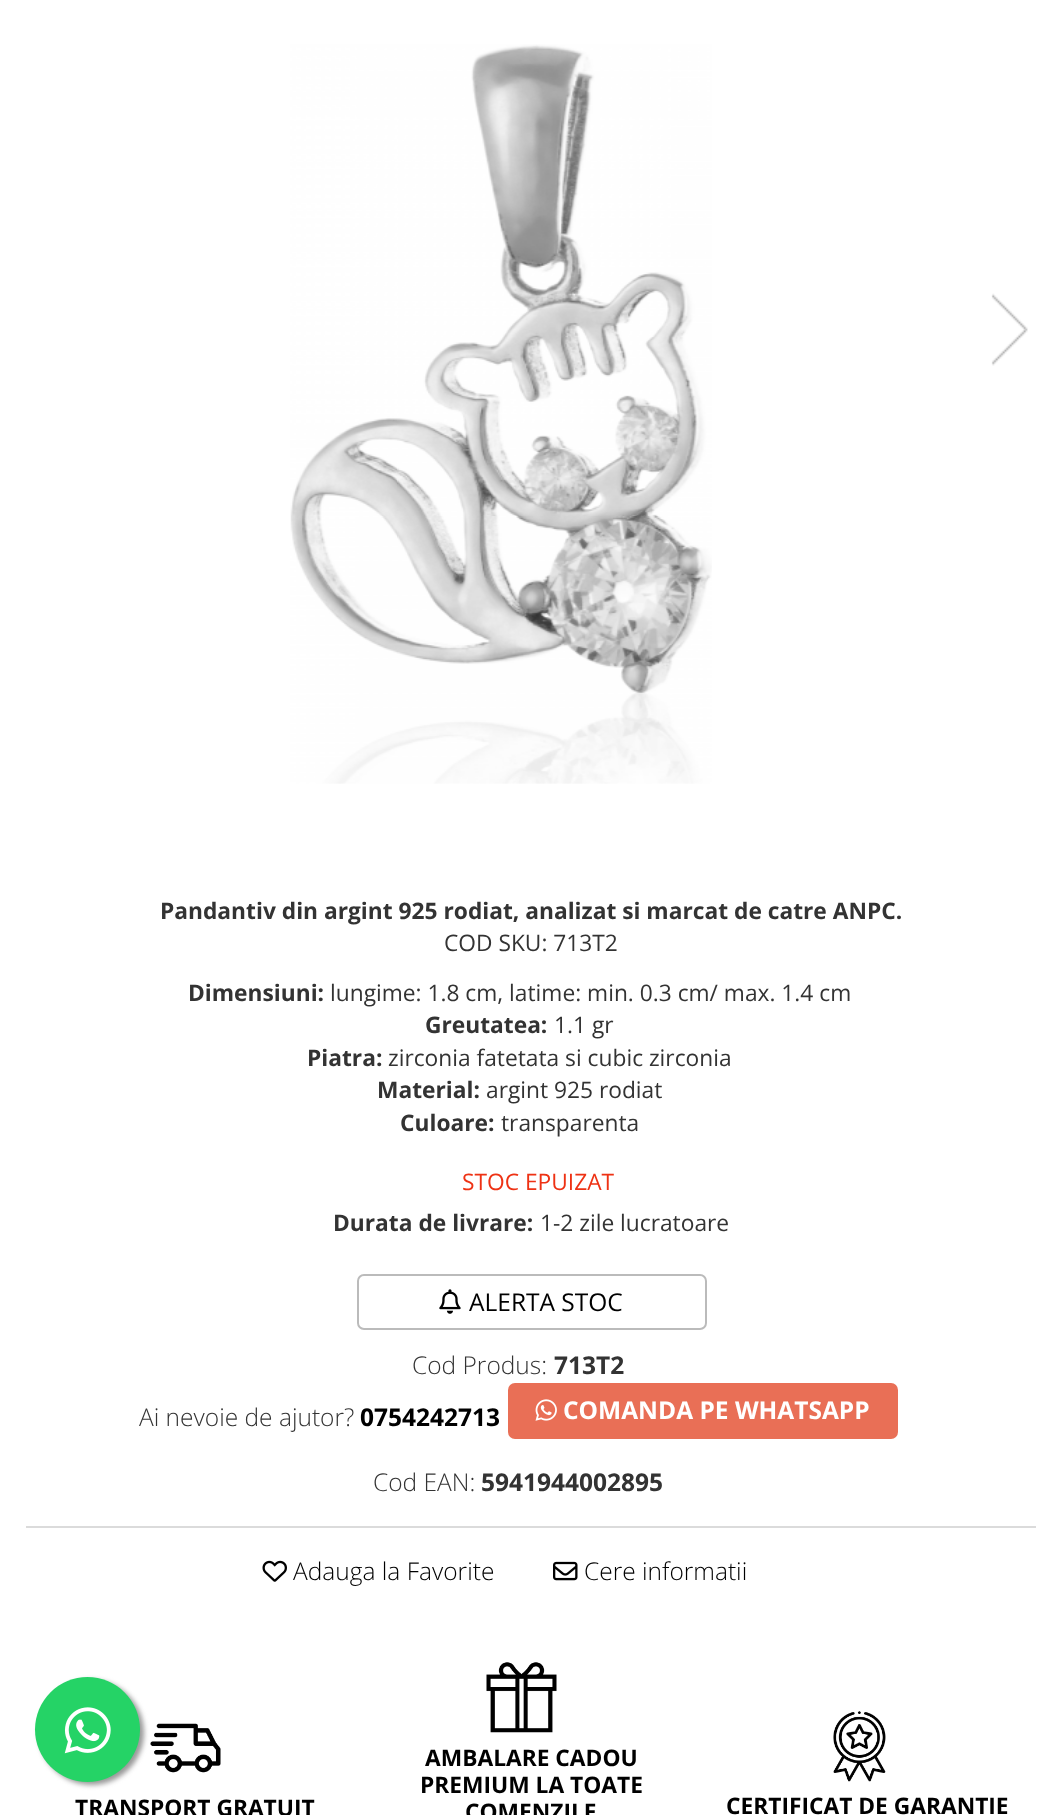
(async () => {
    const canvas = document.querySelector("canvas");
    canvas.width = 1061;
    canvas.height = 1815;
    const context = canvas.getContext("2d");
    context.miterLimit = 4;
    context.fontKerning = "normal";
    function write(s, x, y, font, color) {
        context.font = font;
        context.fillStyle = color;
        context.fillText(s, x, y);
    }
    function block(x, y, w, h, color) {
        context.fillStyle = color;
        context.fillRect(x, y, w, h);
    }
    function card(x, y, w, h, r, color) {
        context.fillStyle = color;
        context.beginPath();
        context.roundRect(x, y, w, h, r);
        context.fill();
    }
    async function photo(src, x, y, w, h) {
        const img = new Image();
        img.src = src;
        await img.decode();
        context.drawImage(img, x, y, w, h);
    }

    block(0, 0, 1061, 1815, "rgb(255, 255, 255)");
    await photo("media/1.png", 290, 44, 422, 740);
    await photo("media/2.png", 991, 293, 37, 73);
    write("Pandantiv din argint 925 rodiat, analizat si marcat de catre ANPC.", 160, 919, "bold 22.75px Open Sans", "rgb(51, 51, 51)");
    write("COD SKU: 713T2", 444, 951, "22.75px Open Sans", "rgb(51, 51, 51)");
    write("Dimensiuni:", 188, 1001, "bold 22.75px Open Sans", "rgb(51, 51, 51)");
    write("lungime: 1.8 cm, latime: min. 0.3 cm/ max. 1.4 cm", 330, 1001, "22.75px Open Sans", "rgb(51, 51, 51)");
    write("Greutatea:", 425, 1033, "bold 22.75px Open Sans", "rgb(51, 51, 51)");
    write("1.1 gr", 554, 1033, "22.75px Open Sans", "rgb(51, 51, 51)");
    write("Piatra:", 307, 1066, "bold 22.75px Open Sans", "rgb(51, 51, 51)");
    write("zirconia fatetata si cubic zirconia", 388, 1066, "22.75px Open Sans", "rgb(51, 51, 51)");
    write("Material:", 377, 1098, "bold 22.75px Open Sans", "rgb(51, 51, 51)");
    write("argint 925 rodiat", 486, 1098, "22.75px Open Sans", "rgb(51, 51, 51)");
    write("Culoare:", 400, 1131, "bold 22.75px Open Sans", "rgb(51, 51, 51)");
    write("transparenta", 501, 1131, "22.75px Open Sans", "rgb(51, 51, 51)");
    write("STOC EPUIZAT", 462, 1190, "22.75px Open Sans", "rgb(238, 50, 20)");
    write("Durata de livrare:", 333, 1231, "bold 22.75px Open Sans", "rgb(51, 51, 51)");
    write("1-2 zile lucratoare", 540, 1231, "22.75px Open Sans", "rgb(51, 51, 51)");
    context.beginPath();
    context.roundRect(358, 1275, 348, 54, 6);
    context.strokeStyle = "rgb(187, 187, 187)";
    context.lineWidth = 2;
    context.stroke();
    await photo("media/3.png", 439, 1289, 22, 25);
    write("ALERTA STOC", 469, 1311, "24.5px Open Sans", "rgb(0, 0, 0)");
    write("Cod Produs:", 412, 1374, "300 24.5px Open Sans", "rgb(51, 51, 51)");
    write("713T2", 554, 1374, "bold 24.5px Open Sans", "rgb(51, 51, 51)");
    write("Ai nevoie de ajutor?", 139, 1426, "300 24.5px Open Sans", "rgb(51, 51, 51)");
    write("0754242713", 360, 1426, "bold 24.5px Open Sans", "rgb(0, 0, 0)");
    card(508, 1383, 390, 56, 7, "rgb(233, 111, 86)");
    await photo("media/4.png", 535, 1399, 22, 22);
    write("COMANDA PE WHATSAPP", 563, 1419, "bold 24.5px Open Sans", "rgb(255, 255, 255)");
    write("Cod EAN:", 373, 1491, "300 24.5px Open Sans", "rgb(51, 51, 51)");
    write("5941944002895", 481, 1491, "bold 24.5px Open Sans", "rgb(51, 51, 51)");
    block(26, 1526, 1010, 2, "rgb(219, 219, 219)");
    await photo("media/5.png", 262, 1560, 25, 22);
    write("Adauga la Favorite", 293, 1580, "300 24.5px Open Sans", "rgb(0, 0, 0)");
    await photo("media/6.png", 553, 1561, 25, 20);
    write("Cere informatii", 584, 1580, "300 24.5px Open Sans", "rgb(0, 0, 0)");
    await photo("media/7.png", 150, 1723, 71, 50);
    write("TRANSPORT GRATUIT", 75, 1816, "bold 22.75px Open Sans", "rgb(0, 0, 0)");
    await photo("media/8.png", 486, 1662, 71, 71);
    write("AMBALARE CADOU", 425, 1766, "bold 22.75px Open Sans", "rgb(0, 0, 0)");
    write("PREMIUM LA TOATE", 420, 1793, "bold 22.75px Open Sans", "rgb(0, 0, 0)");
    write("COMENZILE", 465, 1820, "bold 22.75px Open Sans", "rgb(0, 0, 0)");
    await photo("media/9.png", 833, 1711, 53, 71);
    write("CERTIFICAT DE GARANȚIE", 726, 1814, "bold 22.75px Open Sans", "rgb(0, 0, 0)");
    context.fillStyle = "rgb(153, 153, 153)";
    context.filter = "blur(2.5px)";
    context.beginPath();
    context.roundRect(39, 1680, 105, 105, 52.5);
    context.fill();
    context.filter = "none";
    context.fillStyle = "rgb(37, 211, 102)";
    context.beginPath();
    context.arc(87.5, 1729.5, 52.5, 0, Math.PI * 2);
    context.fill();
    await photo("media/10.png", 64, 1707, 47, 47);
})();
